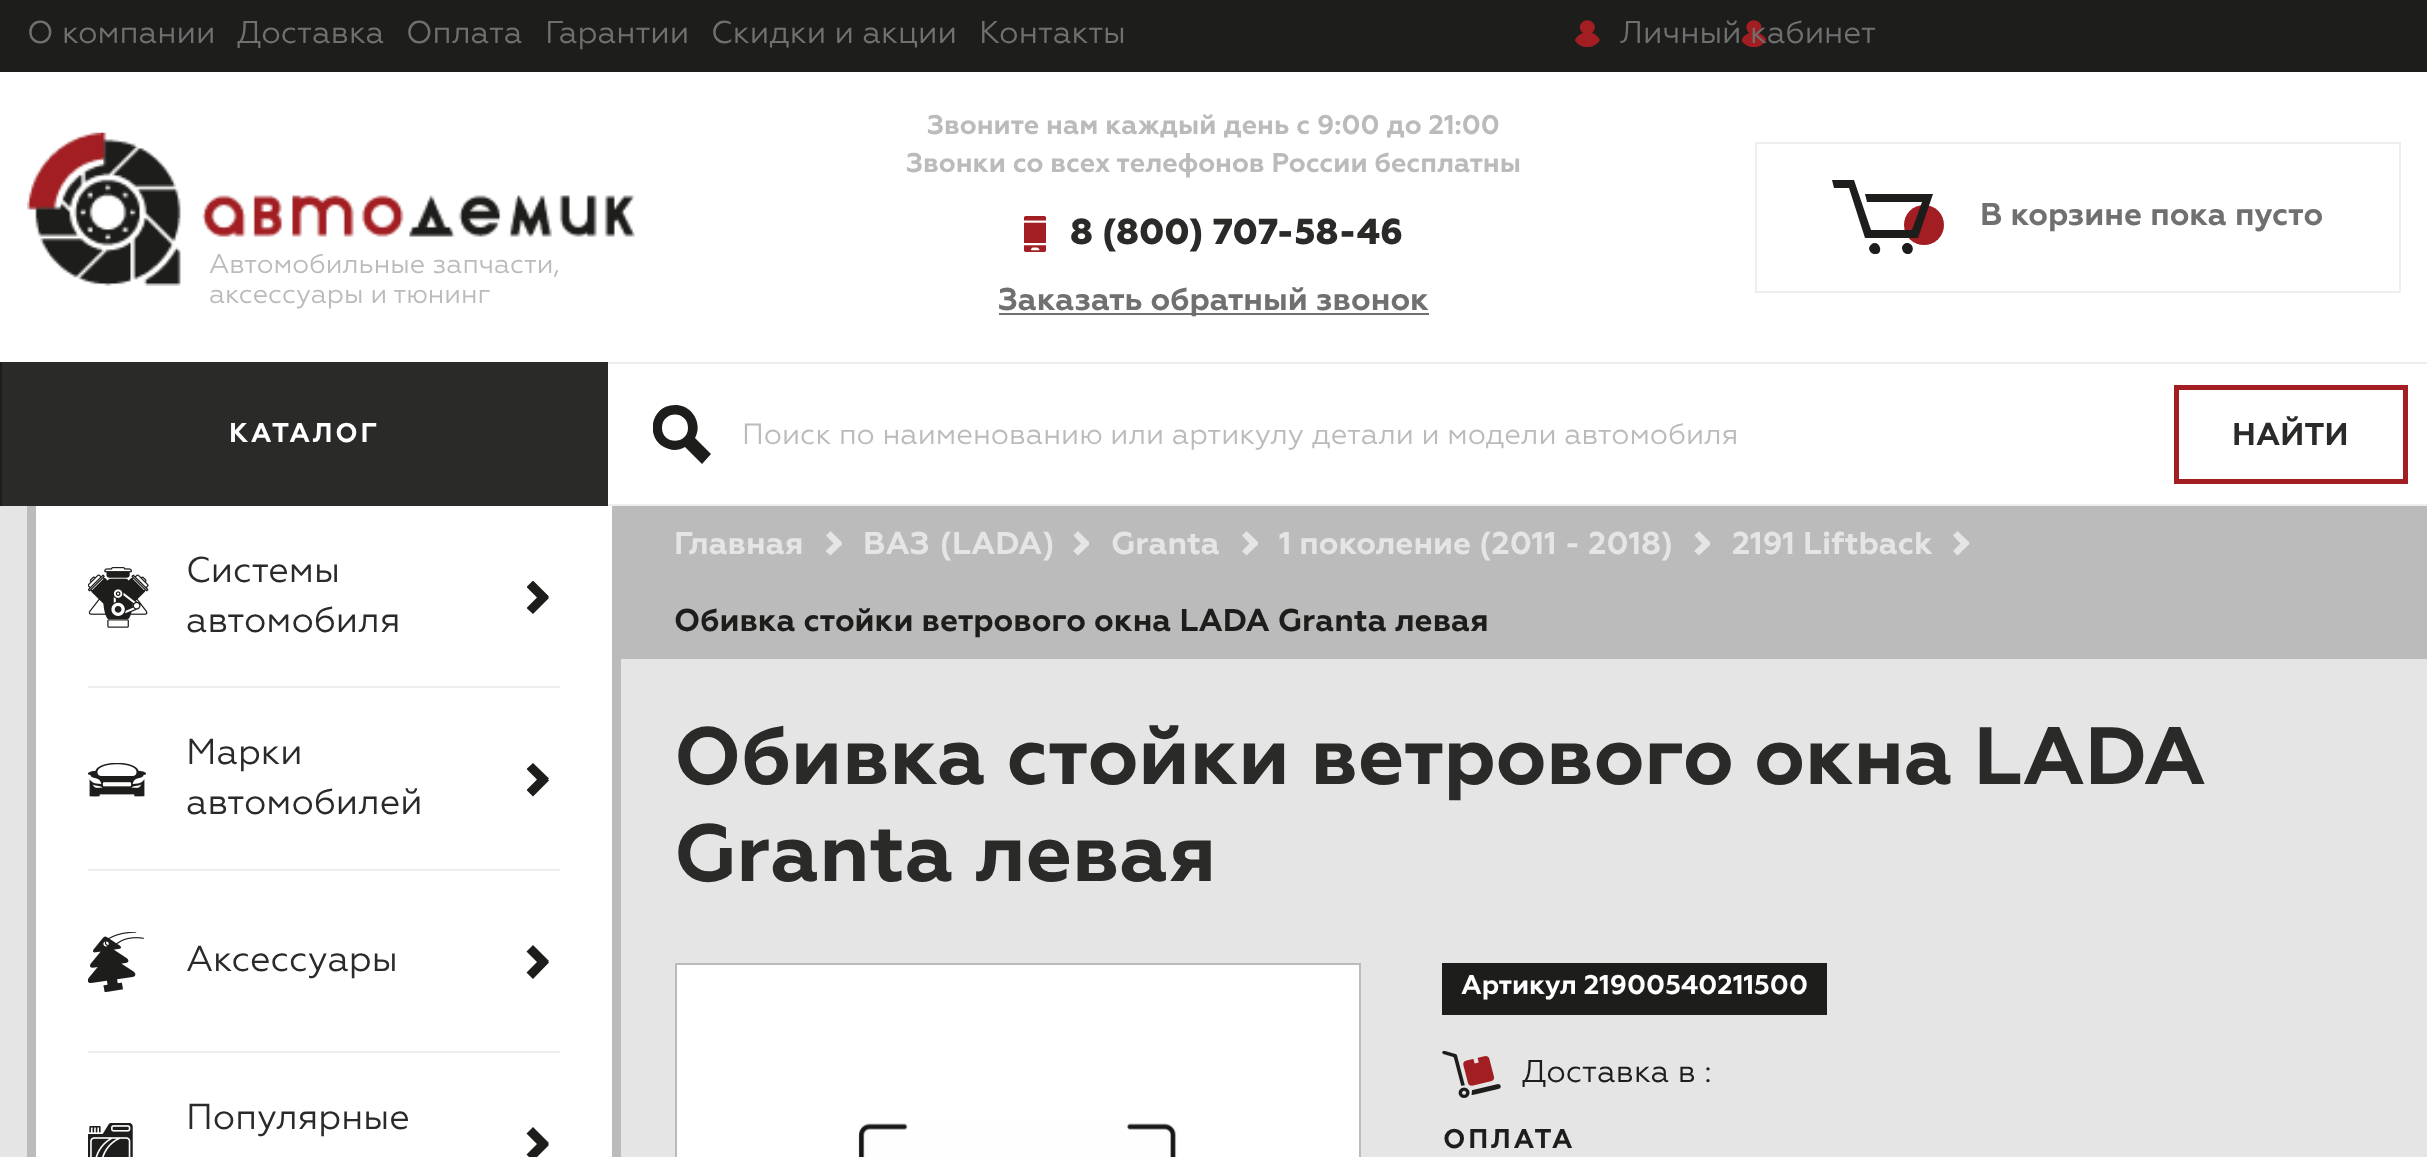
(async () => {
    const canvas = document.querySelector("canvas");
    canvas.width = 2427;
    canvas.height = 1157;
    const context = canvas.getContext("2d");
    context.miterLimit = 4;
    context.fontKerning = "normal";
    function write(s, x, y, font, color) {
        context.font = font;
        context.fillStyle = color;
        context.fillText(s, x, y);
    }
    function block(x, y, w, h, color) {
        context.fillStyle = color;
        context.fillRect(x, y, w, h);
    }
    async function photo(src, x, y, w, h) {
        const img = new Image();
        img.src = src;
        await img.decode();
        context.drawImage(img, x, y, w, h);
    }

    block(0, 0, 2427, 1157, "rgb(229, 229, 229)");
    block(0, 72, 2427, 290, "rgb(255, 255, 255)");
    block(0, 0, 2427, 72, "rgb(29, 29, 27)");
    write("О компании", 27, 43, "31.5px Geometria", "rgb(112, 112, 112)");
    write("Доставка", 237, 43, "31.5px Geometria", "rgb(112, 112, 112)");
    write("Оплата", 406, 43, "31.5px Geometria", "rgb(112, 112, 112)");
    write("Гарантии", 545, 43, "31.5px Geometria", "rgb(112, 112, 112)");
    write("Скидки и акции", 711, 43, "31.5px Geometria", "rgb(112, 112, 112)");
    write("Контакты", 979, 43, "31.5px Geometria", "rgb(112, 112, 112)");
    await photo("media/1.png", 1575, 20, 191, 27);
    write("Личный кабинет", 1620, 43, "31.5px Geometria", "rgb(112, 112, 112)");
    write("Звоните нам каждый день с 9:00 до 21:00", 927, 134, "bold 27px Geometria", "rgb(187, 187, 187)");
    write("Звонки со всех телефонов России бесплатны", 906, 172, "bold 27px Geometria", "rgb(187, 187, 187)");
    await photo("media/2.png", 1024, 216, 22, 36);
    write("8 (800) 707-58-46", 1070, 244, "800 36px Geometria", "rgb(42, 42, 41)");
    block(999, 313, 430, 2, "rgb(112, 112, 112)");
    write("Заказать обратный звонок", 998, 310, "bold 31.5px Geometria", "rgb(112, 112, 112)");
    context.strokeStyle = "rgb(238, 238, 238)";
    context.lineWidth = 2;
    context.strokeRect(1756, 143, 644, 149);
    context.fillStyle = "rgb(162, 30, 34)";
    context.beginPath();
    context.arc(1924, 225, 20, 0, Math.PI * 2);
    context.fill();
    context.save();
    context.beginPath();
    context.rect(1832, 180, 101, 74);
    context.clip();
    context.fillStyle = "rgb(29, 29, 27)";
    context.beginPath();
    context.moveTo(1907, 243);
    context.bezierCurveTo(1905, 243, 1902, 245, 1902, 248);
    context.bezierCurveTo(1902, 253, 1908, 256, 1911, 253);
    context.bezierCurveTo(1915, 249, 1912, 243, 1907, 243);
    context.closePath();
    context.moveTo(1875, 243);
    context.bezierCurveTo(1872, 243, 1870, 245, 1869, 248);
    context.bezierCurveTo(1869, 253, 1875, 256, 1879, 253);
    context.bezierCurveTo(1882, 249, 1879, 243, 1875, 243);
    context.closePath();
    context.moveTo(1865, 194);
    context.lineTo(1867, 202);
    context.lineTo(1922, 202);
    context.lineTo(1912, 230);
    context.lineTo(1871, 230);
    context.lineTo(1854, 180);
    context.lineTo(1832, 180);
    context.lineTo(1834, 188);
    context.lineTo(1849, 188);
    context.lineTo(1865, 238);
    context.lineTo(1918, 238);
    context.lineTo(1933, 194);
    context.closePath();
    context.fill();
    context.restore();
    write("В корзине пока пусто", 1980, 225, "bold 31.5px Geometria", "rgb(112, 112, 112)");
    await photo("media/3.png", 27, 132, 608, 154);
    write("Автомобильные запчасти,", 209, 273, "27px Geometria", "rgb(187, 187, 187)");
    write("аксессуары и тюнинг", 209, 303, "27px Geometria", "rgb(187, 187, 187)");
    block(2, 362, 606, 144, "rgb(42, 42, 41)");
    block(0, 362, 2, 144, "rgb(29, 29, 27)");
    context.letterSpacing = "2.75px";
    write("КАТАЛОГ", 229, 442, "bold 27px Geometria", "rgb(255, 255, 255)");
    block(608, 364, 1819, 140, "rgb(255, 255, 255)");
    block(608, 362, 1819, 2, "rgb(238, 238, 238)");
    block(608, 504, 1819, 2, "rgb(238, 238, 238)");
    context.save();
    context.beginPath();
    context.rect(653, 405, 58, 59);
    context.clip();
    context.fillStyle = "rgb(29, 29, 27)";
    context.beginPath();
    context.moveTo(675, 405);
    context.bezierCurveTo(692, 405, 703, 423, 695, 438);
    context.lineTo(711, 454);
    context.lineTo(702, 464);
    context.lineTo(685, 447);
    context.bezierCurveTo(680, 450, 674, 451, 669, 449);
    context.bezierCurveTo(644, 442, 649, 405, 675, 405);
    context.closePath();
    context.moveTo(662, 428);
    context.bezierCurveTo(662, 445, 688, 445, 688, 428);
    context.bezierCurveTo(688, 410, 662, 410, 662, 428);
    context.closePath();
    context.fill();
    context.restore();
    context.letterSpacing = "0px";
    write("Поиск по наименованию или артикулу детали и модели автомобиля", 742, 444, "29.25px Geometria", "rgb(187, 187, 187)");
    context.strokeStyle = "rgb(162, 30, 34)";
    context.lineWidth = 5;
    context.strokeRect(2176.5, 387.5, 229, 94);
    write("НАЙТИ", 2232, 445, "bold 31.5px Geometria", "rgb(42, 42, 41)");
    block(36, 506, 576, 651, "rgb(255, 255, 255)");
    block(612, 506, 9, 651, "rgb(187, 187, 187)");
    block(27, 506, 9, 651, "rgb(187, 187, 187)");
    await photo("media/4.png", 88, 567, 61, 61);
    write("Системы", 186, 582, "36px Geometria", "rgb(42, 42, 41)");
    write("автомобиля", 186, 632, "36px Geometria", "rgb(42, 42, 41)");
    context.save();
    context.beginPath();
    context.rect(527, 581, 22, 33);
    context.clip();
    context.fillStyle = "rgb(29, 29, 27)";
    context.beginPath();
    context.moveTo(549, 596.5);
    context.lineTo(548, 597);
    context.lineTo(549, 598);
    context.lineTo(533, 614);
    context.lineTo(526.5, 608);
    context.lineTo(537, 597.5);
    context.lineTo(526.5, 587);
    context.lineTo(533, 580.5);
    context.closePath();
    context.fill();
    context.restore();
    block(88, 686, 472, 2, "rgb(238, 238, 238)");
    await photo("media/5.png", 88, 763, 58, 34);
    write("Марки", 186, 764, "36px Geometria", "rgb(42, 42, 41)");
    write("автомобилей", 186, 814, "36px Geometria", "rgb(42, 42, 41)");
    context.save();
    context.beginPath();
    context.rect(527, 763, 22, 34);
    context.clip();
    context.fillStyle = "rgb(29, 29, 27)";
    context.beginPath();
    context.moveTo(549, 778.5);
    context.lineTo(548, 779.5);
    context.lineTo(549, 780.5);
    context.lineTo(533, 796.5);
    context.lineTo(526.5, 790);
    context.lineTo(537, 779.5);
    context.lineTo(526.5, 769);
    context.lineTo(533, 763);
    context.closePath();
    context.fill();
    context.restore();
    block(88, 869, 472, 2, "rgb(238, 238, 238)");
    await photo("media/6.png", 88, 932, 56, 60);
    write("Аксессуары", 186, 971, "36px Geometria", "rgb(42, 42, 41)");
    context.fillStyle = "rgb(29, 29, 27)";
    context.beginPath();
    context.moveTo(549, 961);
    context.lineTo(548, 961.5);
    context.lineTo(549, 962.5);
    context.lineTo(533, 979);
    context.lineTo(526.5, 972.5);
    context.lineTo(537, 962);
    context.lineTo(526.5, 951.5);
    context.lineTo(533, 945);
    context.closePath();
    context.fill();
    block(88, 1051, 472, 2, "rgb(238, 238, 238)");
    await photo("media/7.png", 88, 1123, 45, 34);
    write("Популярные", 186, 1129, "36px Geometria", "rgb(42, 42, 41)");
    context.fillStyle = "rgb(29, 29, 27)";
    context.beginPath();
    context.moveTo(549, 1143);
    context.lineTo(548, 1144);
    context.lineTo(549, 1145);
    context.lineTo(533, 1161);
    context.lineTo(526.5, 1154.5);
    context.lineTo(537, 1144);
    context.lineTo(526.5, 1133.5);
    context.lineTo(533, 1127);
    context.closePath();
    context.fill();
    block(621, 506, 1806, 153, "rgb(187, 187, 187)");
    write("Главная", 674, 554, "bold 31.5px Geometria", "rgb(229, 229, 229)");
    context.save();
    context.beginPath();
    context.rect(826, 531, 16, 25);
    context.clip();
    context.beginPath();
    context.moveTo(842, 542.5);
    context.lineTo(841.5, 543.5);
    context.lineTo(842.5, 544);
    context.lineTo(830.5, 555.5);
    context.lineTo(825.5, 551);
    context.lineTo(833.5, 543.5);
    context.lineTo(826, 535.5);
    context.lineTo(830.5, 531);
    context.closePath();
    context.fill();
    context.restore();
    context.wordSpacing = "2px";
    write("ВАЗ (LADA)", 863, 554, "bold 31.5px Geometria", "rgb(229, 229, 229)");
    context.save();
    context.beginPath();
    context.rect(1073, 531, 16, 25);
    context.clip();
    context.beginPath();
    context.moveTo(1089.5, 542.5);
    context.lineTo(1089, 543.5);
    context.lineTo(1090, 544);
    context.lineTo(1078, 555.5);
    context.lineTo(1073, 551);
    context.lineTo(1081, 543.5);
    context.lineTo(1073.5, 535.5);
    context.lineTo(1078, 531);
    context.closePath();
    context.fill();
    context.restore();
    context.wordSpacing = "0px";
    write("Granta", 1111, 554, "bold 31.5px Geometria", "rgb(229, 229, 229)");
    context.save();
    context.beginPath();
    context.rect(1242, 531, 16, 25);
    context.clip();
    context.beginPath();
    context.moveTo(1258.5, 542.5);
    context.lineTo(1258, 543.5);
    context.lineTo(1258.5, 544);
    context.lineTo(1246.5, 555.5);
    context.lineTo(1242, 551);
    context.lineTo(1249.5, 543.5);
    context.lineTo(1242, 535.5);
    context.lineTo(1246.5, 531);
    context.closePath();
    context.fill();
    context.restore();
    write("1 поколение (2011 - 2018)", 1279, 554, "bold 31.5px Geometria", "rgb(229, 229, 229)");
    context.save();
    context.beginPath();
    context.rect(1694, 531, 16, 25);
    context.clip();
    context.beginPath();
    context.moveTo(1710.5, 542.5);
    context.lineTo(1710, 543.5);
    context.lineTo(1711, 544);
    context.lineTo(1699, 555.5);
    context.lineTo(1694, 551);
    context.lineTo(1702, 543.5);
    context.lineTo(1694.5, 535.5);
    context.lineTo(1699, 531);
    context.closePath();
    context.fill();
    context.restore();
    write("2191 Liftback", 1732, 554, "bold 31.5px Geometria", "rgb(229, 229, 229)");
    context.beginPath();
    context.moveTo(1969.5, 542.5);
    context.lineTo(1969, 543.5);
    context.lineTo(1969.5, 544);
    context.lineTo(1957.5, 555.5);
    context.lineTo(1953, 551);
    context.lineTo(1960.5, 543.5);
    context.lineTo(1953, 535.5);
    context.lineTo(1957.5, 531);
    context.closePath();
    context.fill();
    write("Обивка стойки ветрового окна LADA Granta левая", 674, 631, "bold 31.5px Geometria", "rgb(29, 29, 27)");
    write("Обивка стойки ветрового окна LADA", 674, 784, "bold 81px Geometria", "rgb(42, 42, 41)");
    write("Granta левая", 674, 881, "bold 81px Geometria", "rgb(42, 42, 41)");
    context.fillStyle = "rgb(255, 255, 255)";
    context.beginPath();
    context.rect(676, 964, 684, 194);
    context.fill();
    context.strokeStyle = "rgb(187, 187, 187)";
    context.lineWidth = 2;
    context.stroke();
    await photo("media/8.png", 858, 1123, 319, 34);
    block(1442, 963, 385, 52, "rgb(29, 29, 27)");
    write("Артикул 21900540211500", 1461, 994, "bold 27px Geometria", "rgb(255, 255, 255)");
    await photo("media/9.png", 1442, 1051, 59, 47);
    write("Доставка в :", 1522, 1082, "31.5px Geometria", "rgb(29, 29, 27)");
    context.letterSpacing = "2.75px";
    write("ОПЛАТА", 1443, 1148, "bold 27px Geometria", "rgb(29, 29, 27)");
})();
